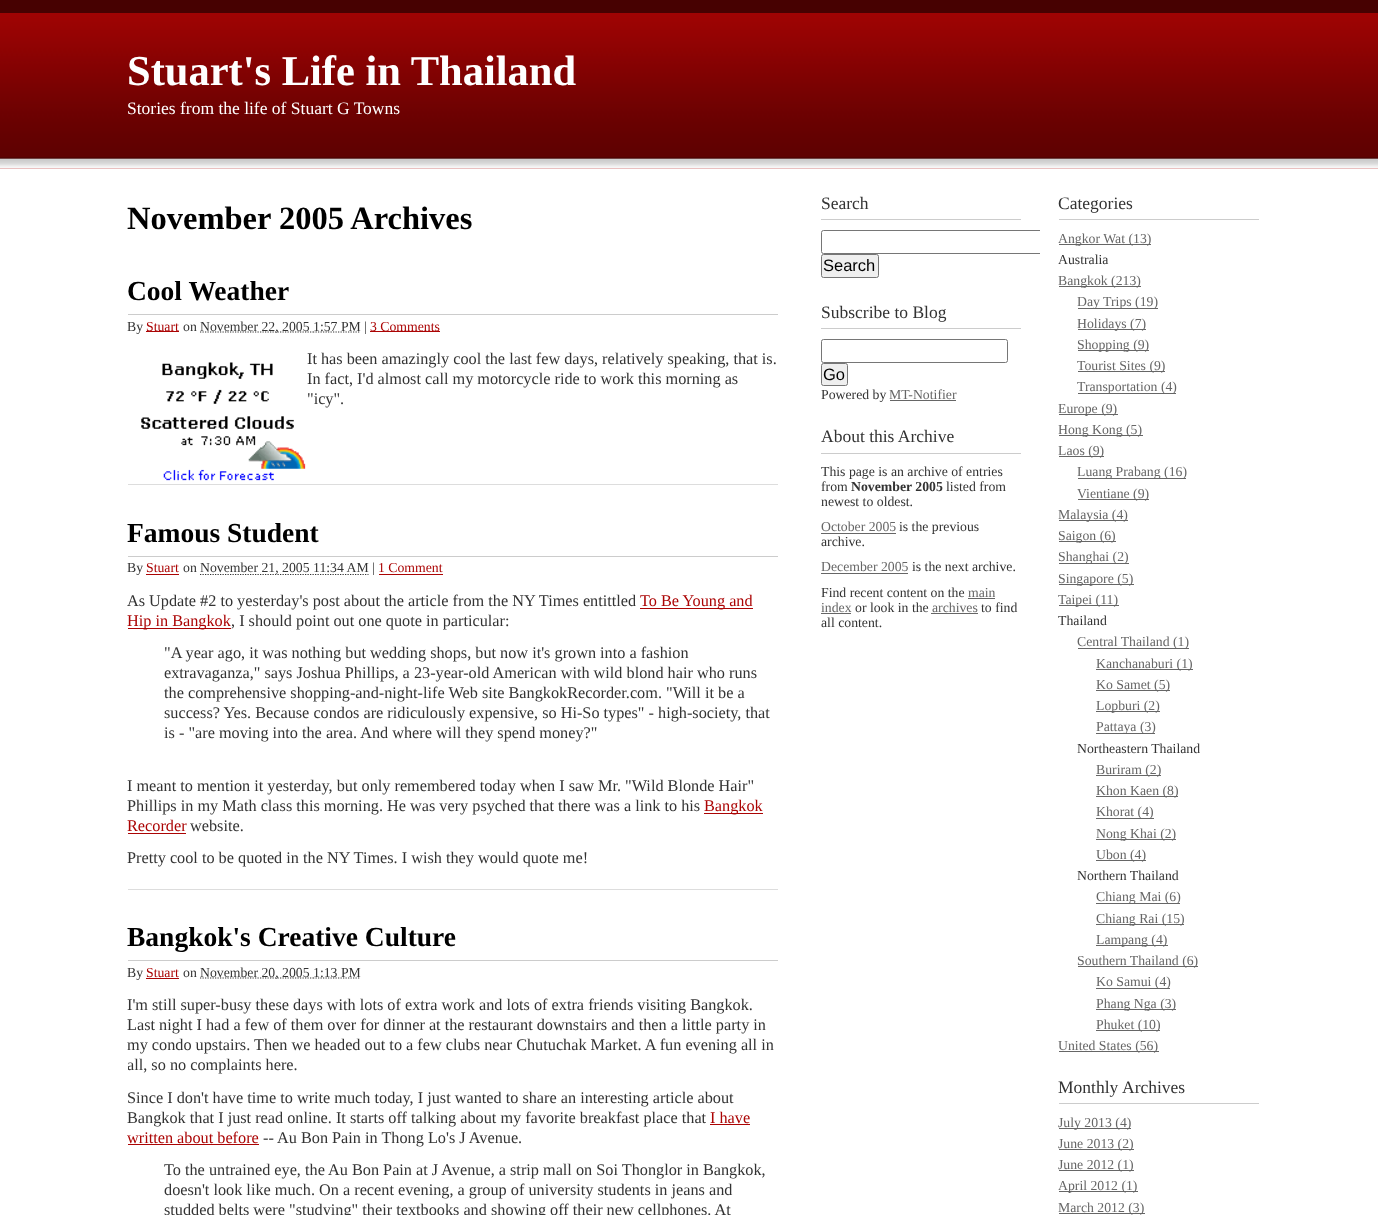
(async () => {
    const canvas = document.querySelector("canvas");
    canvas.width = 1378;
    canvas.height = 1215;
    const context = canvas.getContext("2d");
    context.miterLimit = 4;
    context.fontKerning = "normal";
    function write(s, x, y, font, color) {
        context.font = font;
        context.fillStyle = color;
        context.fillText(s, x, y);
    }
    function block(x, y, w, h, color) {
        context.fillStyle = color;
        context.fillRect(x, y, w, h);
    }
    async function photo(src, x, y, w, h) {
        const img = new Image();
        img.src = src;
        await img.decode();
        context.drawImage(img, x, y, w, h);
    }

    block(0, 0, 1378, 1215, "rgb(255, 255, 255)");
    await photo("media/1.png", 0, 13, 1378, 156);
    block(0, 0, 1378, 13, "rgb(71, 1, 1)");
    write("Stuart's Life in Thailand", 127, 85, "bold 42.5px Liberation Serif", "rgb(255, 255, 255)");
    write("Stories from the life of Stuart G Towns", 127, 114, "17.5px Liberation Serif", "rgb(255, 255, 255)");
    write("November 2005 Archives", 127, 229, "bold 32.5px Liberation Serif", "rgb(0, 0, 0)");
    write("Cool Weather", 127, 300, "bold 27.5px Liberation Serif", "rgb(0, 0, 0)");
    block(128, 314, 650, 1, "rgb(204, 204, 204)");
    write("By", 127, 331, "13.75px Liberation Serif", "rgb(51, 51, 51)");
    block(146, 331, 33, 1, "rgb(171, 4, 4)");
    write("Stuart", 146, 331, "13.75px Liberation Serif", "rgb(171, 4, 4)");
    write("on", 183, 331, "13.75px Liberation Serif", "rgb(51, 51, 51)");
    context.beginPath();
    context.moveTo(200, 332);
    context.lineTo(313, 332);
    context.strokeStyle = "rgb(51, 51, 51)";
    context.lineWidth = 1.2;
    context.setLineDash([1.25, 1.25]);
    context.stroke();
    write("November 22, 2005", 200, 331, "13.75px Liberation Serif", "rgb(51, 51, 51)");
    context.beginPath();
    context.moveTo(313, 332);
    context.lineTo(360.5, 332);
    context.stroke();
    write("1:57 PM |", 313, 331, "13.75px Liberation Serif", "rgb(51, 51, 51)");
    block(370, 331, 70, 1, "rgb(171, 4, 4)");
    write("3 Comments", 370, 331, "13.75px Liberation Serif", "rgb(171, 4, 4)");
    write("It has been amazingly cool the last few days, relatively speaking, that is.", 307, 364, "16.25px Liberation Serif", "rgb(51, 51, 51)");
    await photo("media/2.png", 141, 362, 165, 119);
    write("In fact, I'd almost call my motorcycle ride to work this morning as", 307, 384, "16.25px Liberation Serif", "rgb(51, 51, 51)");
    write("\"icy\".", 307, 404, "16.25px Liberation Serif", "rgb(51, 51, 51)");
    block(128, 484, 650, 1, "rgb(221, 221, 221)");
    write("Famous Student", 127, 542, "bold 27.5px Liberation Serif", "rgb(0, 0, 0)");
    block(128, 556, 650, 1, "rgb(204, 204, 204)");
    write("By", 127, 572, "13.75px Liberation Serif", "rgb(51, 51, 51)");
    block(146, 574, 33, 1, "rgb(171, 4, 4)");
    write("Stuart", 146, 572, "13.75px Liberation Serif", "rgb(171, 4, 4)");
    write("on", 183, 572, "13.75px Liberation Serif", "rgb(51, 51, 51)");
    context.beginPath();
    context.moveTo(200, 574.5);
    context.lineTo(368.5, 574.5);
    context.stroke();
    write("November 21, 2005 11:34 AM |", 200, 572, "13.75px Liberation Serif", "rgb(51, 51, 51)");
    write("1 Comment", 378, 572, "13.75px Liberation Serif", "rgb(171, 4, 4)");
    block(379, 574, 64, 1, "rgb(171, 4, 4)");
    write("As Update #2 to yesterday's post about the article from the NY Times entittled", 127, 606, "16.25px Liberation Serif", "rgb(51, 51, 51)");
    block(640, 608, 113, 1, "rgb(171, 4, 4)");
    write("To Be Young and", 640, 606, "16.25px Liberation Serif", "rgb(171, 4, 4)");
    block(128, 628, 103, 1, "rgb(171, 4, 4)");
    write("Hip in Bangkok", 127, 626, "16.25px Liberation Serif", "rgb(171, 4, 4)");
    write(", I should point out one quote in particular:", 231, 626, "16.25px Liberation Serif", "rgb(51, 51, 51)");
    write("\"A year ago, it was nothing but wedding shops, but now it's grown into a fashion", 164, 658, "16.25px Liberation Serif", "rgb(51, 51, 51)");
    write("extravaganza,\" says Joshua Phillips, a 23-year-old American with wild blond hair who runs", 164, 678, "16.25px Liberation Serif", "rgb(51, 51, 51)");
    write("the comprehensive shopping-and-night-life Web site BangkokRecorder.com. \"Will it be a", 164, 698, "16.25px Liberation Serif", "rgb(51, 51, 51)");
    write("success? Yes. Because condos are ridiculously expensive, so Hi-So types\" - high-society, that", 164, 718, "16.25px Liberation Serif", "rgb(51, 51, 51)");
    write("is - \"are moving into the area. And where will they spend money?\"", 164, 738, "16.25px Liberation Serif", "rgb(51, 51, 51)");
    write("I meant to mention it yesterday, but only remembered today when I saw Mr. \"Wild Blonde Hair\"", 127, 791, "16.25px Liberation Serif", "rgb(51, 51, 51)");
    write("Phillips in my Math class this morning. He was very psyched that there was a link to his", 127, 811, "16.25px Liberation Serif", "rgb(51, 51, 51)");
    block(704, 813, 59, 1, "rgb(171, 4, 4)");
    write("Bangkok", 704, 811, "16.25px Liberation Serif", "rgb(171, 4, 4)");
    write("Recorder", 127, 831, "16.25px Liberation Serif", "rgb(171, 4, 4)");
    block(128, 833, 58, 1, "rgb(171, 4, 4)");
    write("website.", 190, 831, "16.25px Liberation Serif", "rgb(51, 51, 51)");
    write("Pretty cool to be quoted in the NY Times. I wish they would quote me!", 127, 863, "16.25px Liberation Serif", "rgb(51, 51, 51)");
    block(128, 889, 650, 1, "rgb(221, 221, 221)");
    write("Bangkok's Creative Culture", 127, 946, "bold 27.5px Liberation Serif", "rgb(0, 0, 0)");
    block(128, 960, 650, 1, "rgb(204, 204, 204)");
    write("By", 127, 977, "13.75px Liberation Serif", "rgb(51, 51, 51)");
    block(146, 978, 33, 1, "rgb(171, 4, 4)");
    write("Stuart", 146, 977, "13.75px Liberation Serif", "rgb(171, 4, 4)");
    write("on", 183, 977, "13.75px Liberation Serif", "rgb(51, 51, 51)");
    context.beginPath();
    context.moveTo(200, 978);
    context.lineTo(313, 978);
    context.stroke();
    write("November 20, 2005", 200, 977, "13.75px Liberation Serif", "rgb(51, 51, 51)");
    context.beginPath();
    context.moveTo(313, 978);
    context.lineTo(360.5, 978);
    context.stroke();
    write("1:13 PM", 313, 977, "13.75px Liberation Serif", "rgb(51, 51, 51)");
    write("I'm still super-busy these days with lots of extra work and lots of extra friends visiting Bangkok.", 127, 1010, "16.25px Liberation Serif", "rgb(51, 51, 51)");
    write("Last night I had a few of them over for dinner at the restaurant downstairs and then a little party in", 127, 1030, "16.25px Liberation Serif", "rgb(51, 51, 51)");
    write("my condo upstairs.", 127, 1050, "16.25px Liberation Serif", "rgb(51, 51, 51)");
    write("Then we headed out to a few clubs near Chutuchak Market. A fun evening all in", 254, 1050, "16.25px Liberation Serif", "rgb(51, 51, 51)");
    context.save();
    context.beginPath();
    context.rect(128, 921, 650, 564);
    context.clip();
    write("all, so no complaints here.", 127, 1070, "16.25px Liberation Serif", "rgb(51, 51, 51)");
    context.restore();
    write("Since I don't have time to write much today, I just wanted to share an interesting article about", 127, 1103, "16.25px Liberation Serif", "rgb(51, 51, 51)");
    write("Bangkok that I just read online. It starts off talking about my favorite breakfast place that", 127, 1123, "16.25px Liberation Serif", "rgb(51, 51, 51)");
    write("I have", 710, 1123, "16.25px Liberation Serif", "rgb(171, 4, 4)");
    block(710, 1124, 40, 1, "rgb(171, 4, 4)");
    write("written about before", 127, 1143, "16.25px Liberation Serif", "rgb(171, 4, 4)");
    block(128, 1144, 131, 1, "rgb(171, 4, 4)");
    write("-- Au Bon Pain in Thong Lo's J Avenue.", 263, 1143, "16.25px Liberation Serif", "rgb(51, 51, 51)");
    write("To the untrained eye, the Au Bon Pain at J Avenue, a strip mall on Soi Thonglor in Bangkok,", 164, 1175, "16.25px Liberation Serif", "rgb(51, 51, 51)");
    write("doesn't look like much. On a recent evening, a group of university students in jeans and", 164, 1195, "16.25px Liberation Serif", "rgb(51, 51, 51)");
    write("studded belts were \"studying\" their textbooks and showing off their new cellphones. At", 164, 1215, "16.25px Liberation Serif", "rgb(51, 51, 51)");
    block(821, 219, 200, 1, "rgb(204, 204, 204)");
    write("Search", 821, 209, "17.5px Liberation Serif", "rgb(51, 51, 51)");
    context.save();
    context.beginPath();
    context.rect(803, 194, 237, 109);
    context.clip();
    context.beginPath();
    context.roundRect(821.5, 230.5, 226, 23, 2);
    context.strokeStyle = "rgb(118, 118, 118)";
    context.lineWidth = 1;
    context.setLineDash([]);
    context.stroke();
    context.restore();
    context.fillStyle = "rgb(239, 239, 239)";
    context.beginPath();
    context.roundRect(821.5, 254.5, 57, 23, 2);
    context.fill();
    context.strokeStyle = "rgb(118, 118, 118)";
    context.lineWidth = 1;
    context.setLineDash([]);
    context.stroke();
    write("Search", 823, 271, "16.5px Liberation Sans", "rgb(0, 0, 0)");
    block(821, 328, 200, 1, "rgb(204, 204, 204)");
    write("Subscribe to Blog", 821, 318, "17.5px Liberation Serif", "rgb(51, 51, 51)");
    context.beginPath();
    context.roundRect(821.5, 339.5, 186, 23, 2);
    context.stroke();
    context.fillStyle = "rgb(239, 239, 239)";
    context.beginPath();
    context.roundRect(821.5, 363.5, 26, 22, 2);
    context.fill();
    context.stroke();
    write("Go", 823, 380, "16.5px Liberation Sans", "rgb(0, 0, 0)");
    write("Powered by", 821, 399, "13.75px Liberation Serif", "rgb(51, 51, 51)");
    write("MT-Notifier", 889, 399, "13.75px Liberation Serif", "rgb(102, 102, 102)");
    block(890, 400, 66, 1, "rgb(102, 102, 102)");
    block(821, 453, 200, 1, "rgb(204, 204, 204)");
    write("About this Archive", 821, 442, "17.5px Liberation Serif", "rgb(51, 51, 51)");
    write("This page is an archive of entries", 821, 476, "13.75px Liberation Serif", "rgb(51, 51, 51)");
    write("from", 821, 491, "13.75px Liberation Serif", "rgb(51, 51, 51)");
    write("November 2005", 851, 491, "bold 13.75px Liberation Serif", "rgb(51, 51, 51)");
    write("listed from", 946, 491, "13.75px Liberation Serif", "rgb(51, 51, 51)");
    write("newest to oldest.", 821, 506, "13.75px Liberation Serif", "rgb(51, 51, 51)");
    write("October 2005", 821, 531, "13.75px Liberation Serif", "rgb(102, 102, 102)");
    block(821, 533, 75, 1, "rgb(102, 102, 102)");
    write("is the previous", 899, 531, "13.75px Liberation Serif", "rgb(51, 51, 51)");
    write("archive.", 821, 546, "13.75px Liberation Serif", "rgb(51, 51, 51)");
    write("December 2005", 821, 571, "13.75px Liberation Serif", "rgb(102, 102, 102)");
    block(821, 573, 87, 1, "rgb(102, 102, 102)");
    write("is the next archive.", 912, 571, "13.75px Liberation Serif", "rgb(51, 51, 51)");
    write("Find recent content on the", 821, 597, "13.75px Liberation Serif", "rgb(51, 51, 51)");
    write("main", 968, 597, "13.75px Liberation Serif", "rgb(102, 102, 102)");
    block(968, 598, 27, 1, "rgb(102, 102, 102)");
    write("index", 821, 612, "13.75px Liberation Serif", "rgb(102, 102, 102)");
    block(821, 613, 30, 1, "rgb(102, 102, 102)");
    write("or look in the", 855, 612, "13.75px Liberation Serif", "rgb(51, 51, 51)");
    write("archives", 932, 612, "13.75px Liberation Serif", "rgb(102, 102, 102)");
    block(931, 613, 47, 1, "rgb(102, 102, 102)");
    write("to find", 981, 612, "13.75px Liberation Serif", "rgb(51, 51, 51)");
    write("all content.", 821, 627, "13.75px Liberation Serif", "rgb(51, 51, 51)");
    block(1059, 219, 200, 1, "rgb(204, 204, 204)");
    write("Categories", 1058, 209, "17.5px Liberation Serif", "rgb(51, 51, 51)");
    block(1059, 244, 92, 1, "rgb(102, 102, 102)");
    write("Angkor Wat (13)", 1058, 243, "13.75px Liberation Serif", "rgb(102, 102, 102)");
    write("Australia", 1058, 264, "13.75px Liberation Serif", "rgb(51, 51, 51)");
    block(1059, 286, 82, 1, "rgb(102, 102, 102)");
    write("Bangkok (213)", 1058, 285, "13.75px Liberation Serif", "rgb(102, 102, 102)");
    block(1078, 308, 80, 1, "rgb(102, 102, 102)");
    write("Day Trips (19)", 1077, 306, "13.75px Liberation Serif", "rgb(102, 102, 102)");
    block(1078, 329, 68, 1, "rgb(102, 102, 102)");
    write("Holidays (7)", 1077, 328, "13.75px Liberation Serif", "rgb(102, 102, 102)");
    block(1078, 350, 71, 1, "rgb(102, 102, 102)");
    write("Shopping (9)", 1077, 349, "13.75px Liberation Serif", "rgb(102, 102, 102)");
    block(1078, 371, 87, 1, "rgb(102, 102, 102)");
    write("Tourist Sites (9)", 1077, 370, "13.75px Liberation Serif", "rgb(102, 102, 102)");
    block(1078, 393, 98, 1, "rgb(102, 102, 102)");
    write("Transportation (4)", 1077, 391, "13.75px Liberation Serif", "rgb(102, 102, 102)");
    block(1059, 414, 59, 1, "rgb(102, 102, 102)");
    write("Europe (9)", 1058, 413, "13.75px Liberation Serif", "rgb(102, 102, 102)");
    block(1059, 435, 84, 1, "rgb(102, 102, 102)");
    write("Hong Kong (5)", 1058, 434, "13.75px Liberation Serif", "rgb(102, 102, 102)");
    block(1059, 456, 45, 1, "rgb(102, 102, 102)");
    write("Laos (9)", 1058, 455, "13.75px Liberation Serif", "rgb(102, 102, 102)");
    block(1078, 478, 108, 1, "rgb(102, 102, 102)");
    write("Luang Prabang (16)", 1077, 476, "13.75px Liberation Serif", "rgb(102, 102, 102)");
    block(1078, 499, 71, 1, "rgb(102, 102, 102)");
    write("Vientiane (9)", 1077, 498, "13.75px Liberation Serif", "rgb(102, 102, 102)");
    block(1059, 520, 69, 1, "rgb(102, 102, 102)");
    write("Malaysia (4)", 1058, 519, "13.75px Liberation Serif", "rgb(102, 102, 102)");
    block(1059, 541, 57, 1, "rgb(102, 102, 102)");
    write("Saigon (6)", 1058, 540, "13.75px Liberation Serif", "rgb(102, 102, 102)");
    block(1059, 563, 70, 1, "rgb(102, 102, 102)");
    write("Shanghai (2)", 1058, 561, "13.75px Liberation Serif", "rgb(102, 102, 102)");
    block(1059, 584, 75, 1, "rgb(102, 102, 102)");
    write("Singapore (5)", 1058, 583, "13.75px Liberation Serif", "rgb(102, 102, 102)");
    block(1059, 605, 60, 1, "rgb(102, 102, 102)");
    write("Taipei (11)", 1058, 604, "13.75px Liberation Serif", "rgb(102, 102, 102)");
    write("Thailand", 1058, 625, "13.75px Liberation Serif", "rgb(51, 51, 51)");
    block(1078, 648, 111, 1, "rgb(102, 102, 102)");
    write("Central Thailand (1)", 1077, 646, "13.75px Liberation Serif", "rgb(102, 102, 102)");
    block(1096, 669, 97, 1, "rgb(102, 102, 102)");
    write("Kanchanaburi (1)", 1096, 668, "13.75px Liberation Serif", "rgb(102, 102, 102)");
    block(1096, 690, 74, 1, "rgb(102, 102, 102)");
    write("Ko Samet (5)", 1096, 689, "13.75px Liberation Serif", "rgb(102, 102, 102)");
    block(1096, 711, 64, 1, "rgb(102, 102, 102)");
    write("Lopburi (2)", 1096, 710, "13.75px Liberation Serif", "rgb(102, 102, 102)");
    block(1096, 733, 59, 1, "rgb(102, 102, 102)");
    write("Pattaya (3)", 1096, 731, "13.75px Liberation Serif", "rgb(102, 102, 102)");
    write("Northeastern Thailand", 1077, 753, "13.75px Liberation Serif", "rgb(51, 51, 51)");
    block(1096, 775, 65, 1, "rgb(102, 102, 102)");
    write("Buriram (2)", 1096, 774, "13.75px Liberation Serif", "rgb(102, 102, 102)");
    block(1096, 796, 82, 1, "rgb(102, 102, 102)");
    write("Khon Kaen (8)", 1096, 795, "13.75px Liberation Serif", "rgb(102, 102, 102)");
    block(1096, 818, 58, 1, "rgb(102, 102, 102)");
    write("Khorat (4)", 1096, 816, "13.75px Liberation Serif", "rgb(102, 102, 102)");
    block(1096, 839, 80, 1, "rgb(102, 102, 102)");
    write("Nong Khai (2)", 1096, 838, "13.75px Liberation Serif", "rgb(102, 102, 102)");
    block(1096, 860, 50, 1, "rgb(102, 102, 102)");
    write("Ubon (4)", 1096, 859, "13.75px Liberation Serif", "rgb(102, 102, 102)");
    write("Northern Thailand", 1077, 880, "13.75px Liberation Serif", "rgb(51, 51, 51)");
    block(1096, 903, 84, 1, "rgb(102, 102, 102)");
    write("Chiang Mai (6)", 1096, 901, "13.75px Liberation Serif", "rgb(102, 102, 102)");
    block(1096, 924, 88, 1, "rgb(102, 102, 102)");
    write("Chiang Rai (15)", 1096, 923, "13.75px Liberation Serif", "rgb(102, 102, 102)");
    block(1096, 945, 72, 1, "rgb(102, 102, 102)");
    write("Lampang (4)", 1096, 944, "13.75px Liberation Serif", "rgb(102, 102, 102)");
    block(1078, 966, 120, 1, "rgb(102, 102, 102)");
    write("Southern Thailand (6)", 1077, 965, "13.75px Liberation Serif", "rgb(102, 102, 102)");
    block(1096, 988, 74, 1, "rgb(102, 102, 102)");
    write("Ko Samui (4)", 1096, 986, "13.75px Liberation Serif", "rgb(102, 102, 102)");
    block(1096, 1009, 80, 1, "rgb(102, 102, 102)");
    write("Phang Nga (3)", 1096, 1008, "13.75px Liberation Serif", "rgb(102, 102, 102)");
    block(1096, 1030, 64, 1, "rgb(102, 102, 102)");
    write("Phuket (10)", 1096, 1029, "13.75px Liberation Serif", "rgb(102, 102, 102)");
    block(1059, 1051, 100, 1, "rgb(102, 102, 102)");
    write("United States (56)", 1058, 1050, "13.75px Liberation Serif", "rgb(102, 102, 102)");
    block(1059, 1103, 200, 1, "rgb(204, 204, 204)");
    write("Monthly", 1058, 1093, "17.5px Liberation Serif", "rgb(51, 51, 51)");
    write("Archives", 1122, 1093, "17.5px Liberation Serif", "rgb(51, 51, 51)");
    block(1059, 1128, 72, 1, "rgb(102, 102, 102)");
    write("July 2013 (4)", 1058, 1127, "13.75px Liberation Serif", "rgb(102, 102, 102)");
    block(1059, 1149, 75, 1, "rgb(102, 102, 102)");
    write("June 2013 (2)", 1058, 1148, "13.75px Liberation Serif", "rgb(102, 102, 102)");
    block(1059, 1170, 75, 1, "rgb(102, 102, 102)");
    write("June 2012 (1)", 1058, 1169, "13.75px Liberation Serif", "rgb(102, 102, 102)");
    block(1059, 1191, 79, 1, "rgb(102, 102, 102)");
    write("April 2012 (1)", 1058, 1190, "13.75px Liberation Serif", "rgb(102, 102, 102)");
    block(1059, 1213, 86, 1, "rgb(102, 102, 102)");
    write("March 2012 (3)", 1058, 1212, "13.75px Liberation Serif", "rgb(102, 102, 102)");
})();
